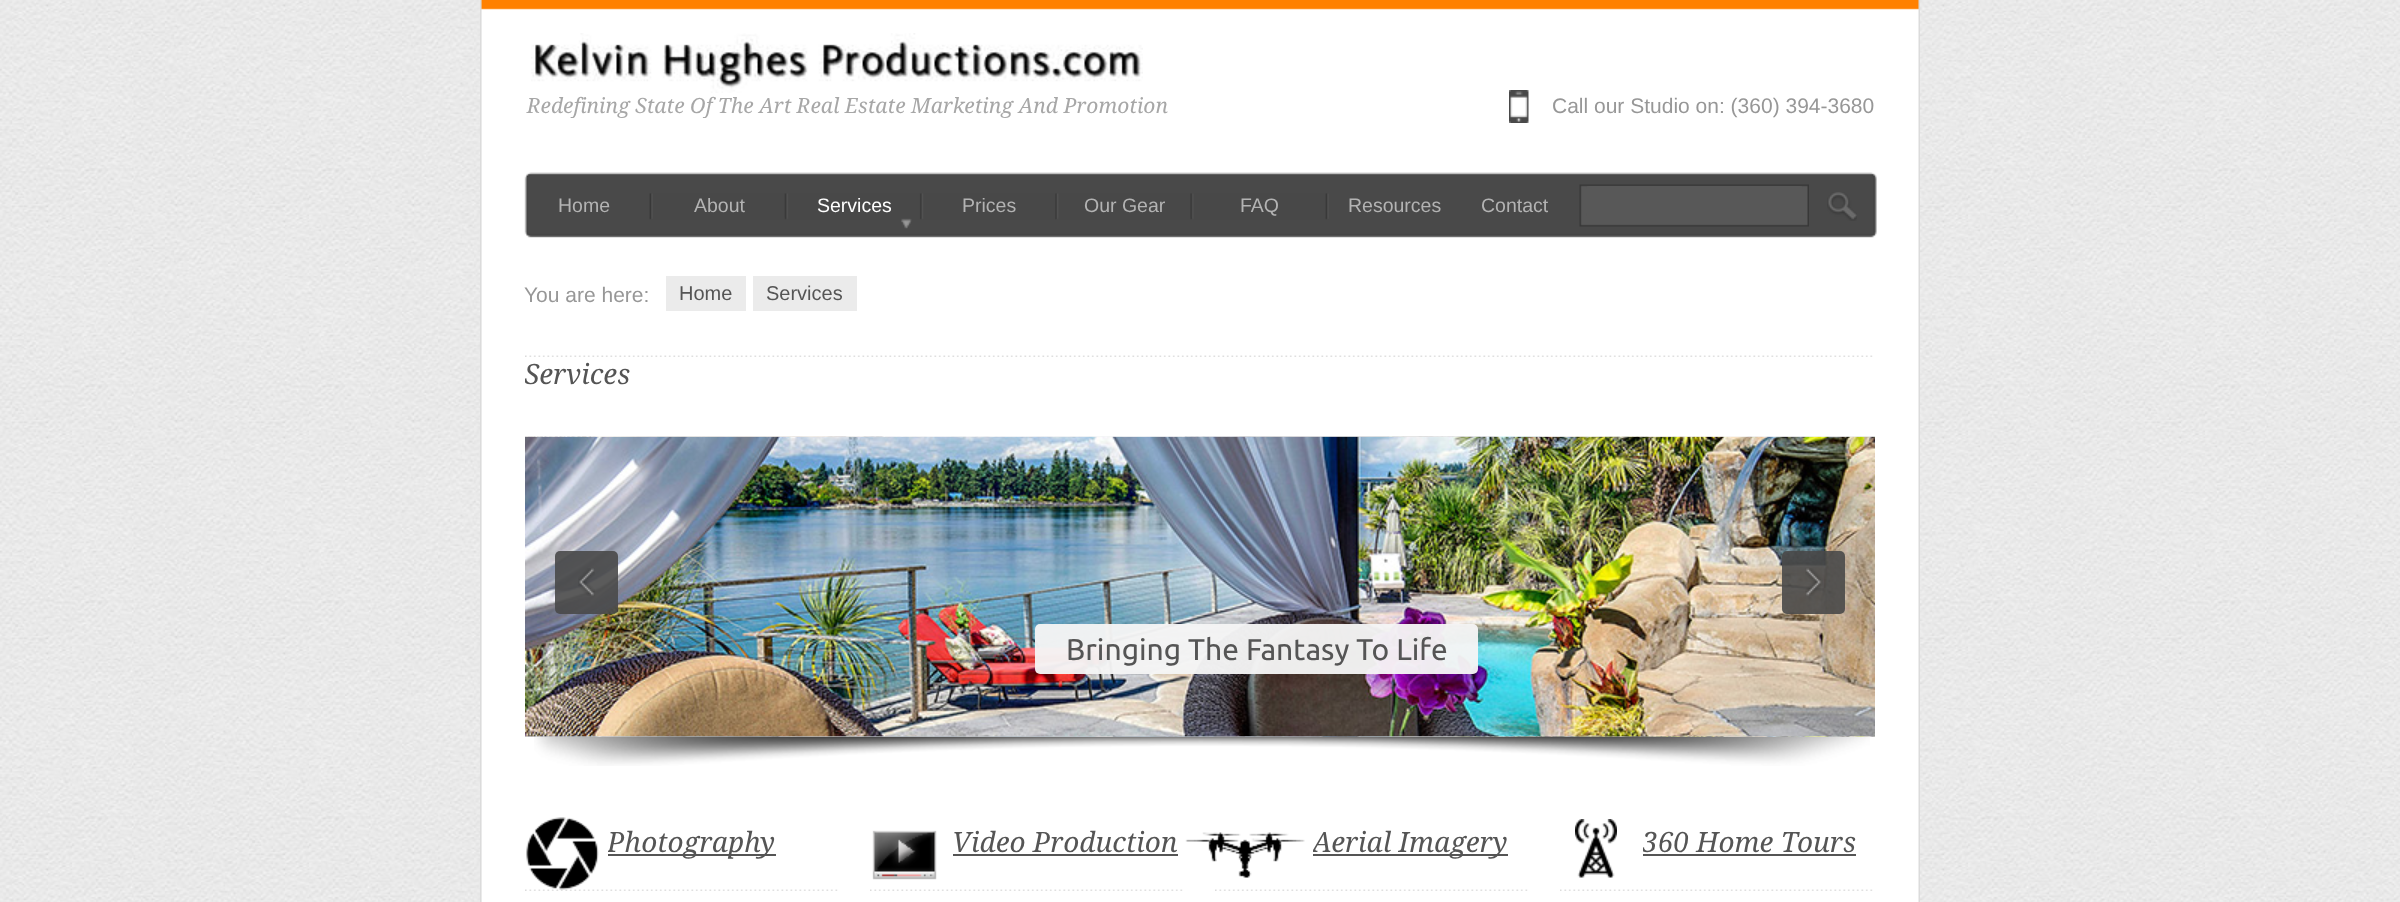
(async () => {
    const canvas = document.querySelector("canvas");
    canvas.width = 2400;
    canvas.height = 902;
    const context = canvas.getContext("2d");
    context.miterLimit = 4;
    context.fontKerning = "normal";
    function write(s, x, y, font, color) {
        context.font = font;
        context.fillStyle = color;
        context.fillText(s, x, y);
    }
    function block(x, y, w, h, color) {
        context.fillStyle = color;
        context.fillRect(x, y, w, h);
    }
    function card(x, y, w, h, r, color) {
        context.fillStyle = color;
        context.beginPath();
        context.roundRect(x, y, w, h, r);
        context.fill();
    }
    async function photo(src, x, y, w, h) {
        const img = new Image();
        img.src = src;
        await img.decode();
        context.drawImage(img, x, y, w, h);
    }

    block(0, 0, 2400, 902, "rgb(255, 255, 255)");
    await photo("media/1.png", 0, 0, 2400, 902);
    await photo("media/2.png", 480, 0, 1440, 902);
    await photo("media/3.png", 531, 33, 612, 60);
    write("Redefining State Of The Art Real Estate Marketing And Promotion", 527, 113, "italic 21px Droid Serif", "rgb(167, 167, 167)");
    await photo("media/4.png", 1509, 90, 20, 33);
    write("Call our Studio on: (360) 394-3680", 1552, 113, "21px Liberation Sans", "rgb(151, 151, 151)");
    await photo("media/5.png", 1579, 184, 230, 43);
    await photo("media/6.png", 649, 193, 680, 27);
    write("Home", 558, 212, "19.5px Liberation Sans", "rgb(179, 179, 179)");
    write("About", 694, 212, "19.5px Liberation Sans", "rgb(179, 179, 179)");
    await photo("media/7.png", 901, 218, 11, 11);
    write("Services", 817, 212, "19.5px Liberation Sans", "rgb(255, 255, 255)");
    write("Prices", 962, 212, "19.5px Liberation Sans", "rgb(179, 179, 179)");
    write("Our Gear", 1084, 212, "19.5px Liberation Sans", "rgb(179, 179, 179)");
    write("FAQ", 1240, 212, "19.5px Liberation Sans", "rgb(179, 179, 179)");
    write("Resources", 1348, 212, "19.5px Liberation Sans", "rgb(179, 179, 179)");
    write("Contact", 1481, 212, "19.5px Liberation Sans", "rgb(179, 179, 179)");
    card(1586, 186, 217, 30, 3, "rgb(88, 88, 88)");
    await photo("media/8.png", 1827, 192, 30, 29);
    write("You are here:", 524, 302, "21px Liberation Sans", "rgb(151, 151, 151)");
    block(666, 276, 80, 35, "rgb(235, 235, 235)");
    write("Home", 679, 300, "20px Liberation Sans", "rgb(85, 85, 85)");
    block(753, 276, 104, 35, "rgb(235, 235, 235)");
    write("Services", 766, 300, "20px Liberation Sans", "rgb(85, 85, 85)");
    await photo("media/9.png", 525, 355, 1348, 2);
    context.save();
    context.beginPath();
    context.rect(525, 357, 1350, 68);
    context.clip();
    write("Services", 524, 384, "italic 28px Droid Serif", "rgb(85, 85, 85)");
    context.restore();
    await photo("media/13.png", 534, 736, 1336, 30);
    await photo("media/12.png", 525, 436, 1350, 301);
    card(555, 551, 63, 63, 5, "rgba(73, 73, 73, 0.9)");
    await photo("media/10.png", 578, 568, 17, 28);
    card(1782, 551, 63, 63, 5, "rgba(73, 73, 73, 0.9)");
    await photo("media/11.png", 1805, 568, 18, 28);
    card(1035, 624, 443, 50, 5, "rgba(245, 245, 245, 0.96)");
    write("Bringing The Fantasy To Life", 1066, 660, "30px Ubuntu", "rgb(85, 85, 85)");
    await photo("media/18.png", 525, 889, 313, 2);
    await photo("media/14.png", 526, 817, 73, 73);
    block(608, 854, 168, 2, "rgb(85, 85, 85)");
    context.save();
    context.beginPath();
    context.rect(608, 825, 232, 59);
    context.clip();
    write("Photography", 607, 852, "italic 28px Droid Serif", "rgb(85, 85, 85)");
    context.restore();
    await photo("media/15.png", 872, 830, 65, 50);
    write("Video Production", 952, 852, "italic 28px Droid Serif", "rgb(85, 85, 85)");
    block(953, 854, 225, 2, "rgb(85, 85, 85)");
    await photo("media/16.png", 1185, 832, 120, 46);
    block(1313, 854, 195, 2, "rgb(85, 85, 85)");
    context.save();
    context.beginPath();
    context.rect(1313, 825, 232, 59);
    context.clip();
    write("Aerial Imagery", 1312, 852, "italic 28px Droid Serif", "rgb(85, 85, 85)");
    context.restore();
    await photo("media/17.png", 1575, 819, 42, 59);
    context.save();
    context.beginPath();
    context.rect(1643, 825, 232, 59);
    context.clip();
    write("360 Home Tours", 1642, 852, "italic 28px Droid Serif", "rgb(85, 85, 85)");
    context.restore();
    block(1643, 854, 213, 2, "rgb(85, 85, 85)");
    await photo("media/19.png", 870, 889, 313, 2);
    await photo("media/20.png", 1215, 889, 313, 2);
    await photo("media/19.png", 1560, 889, 313, 2);
})();
